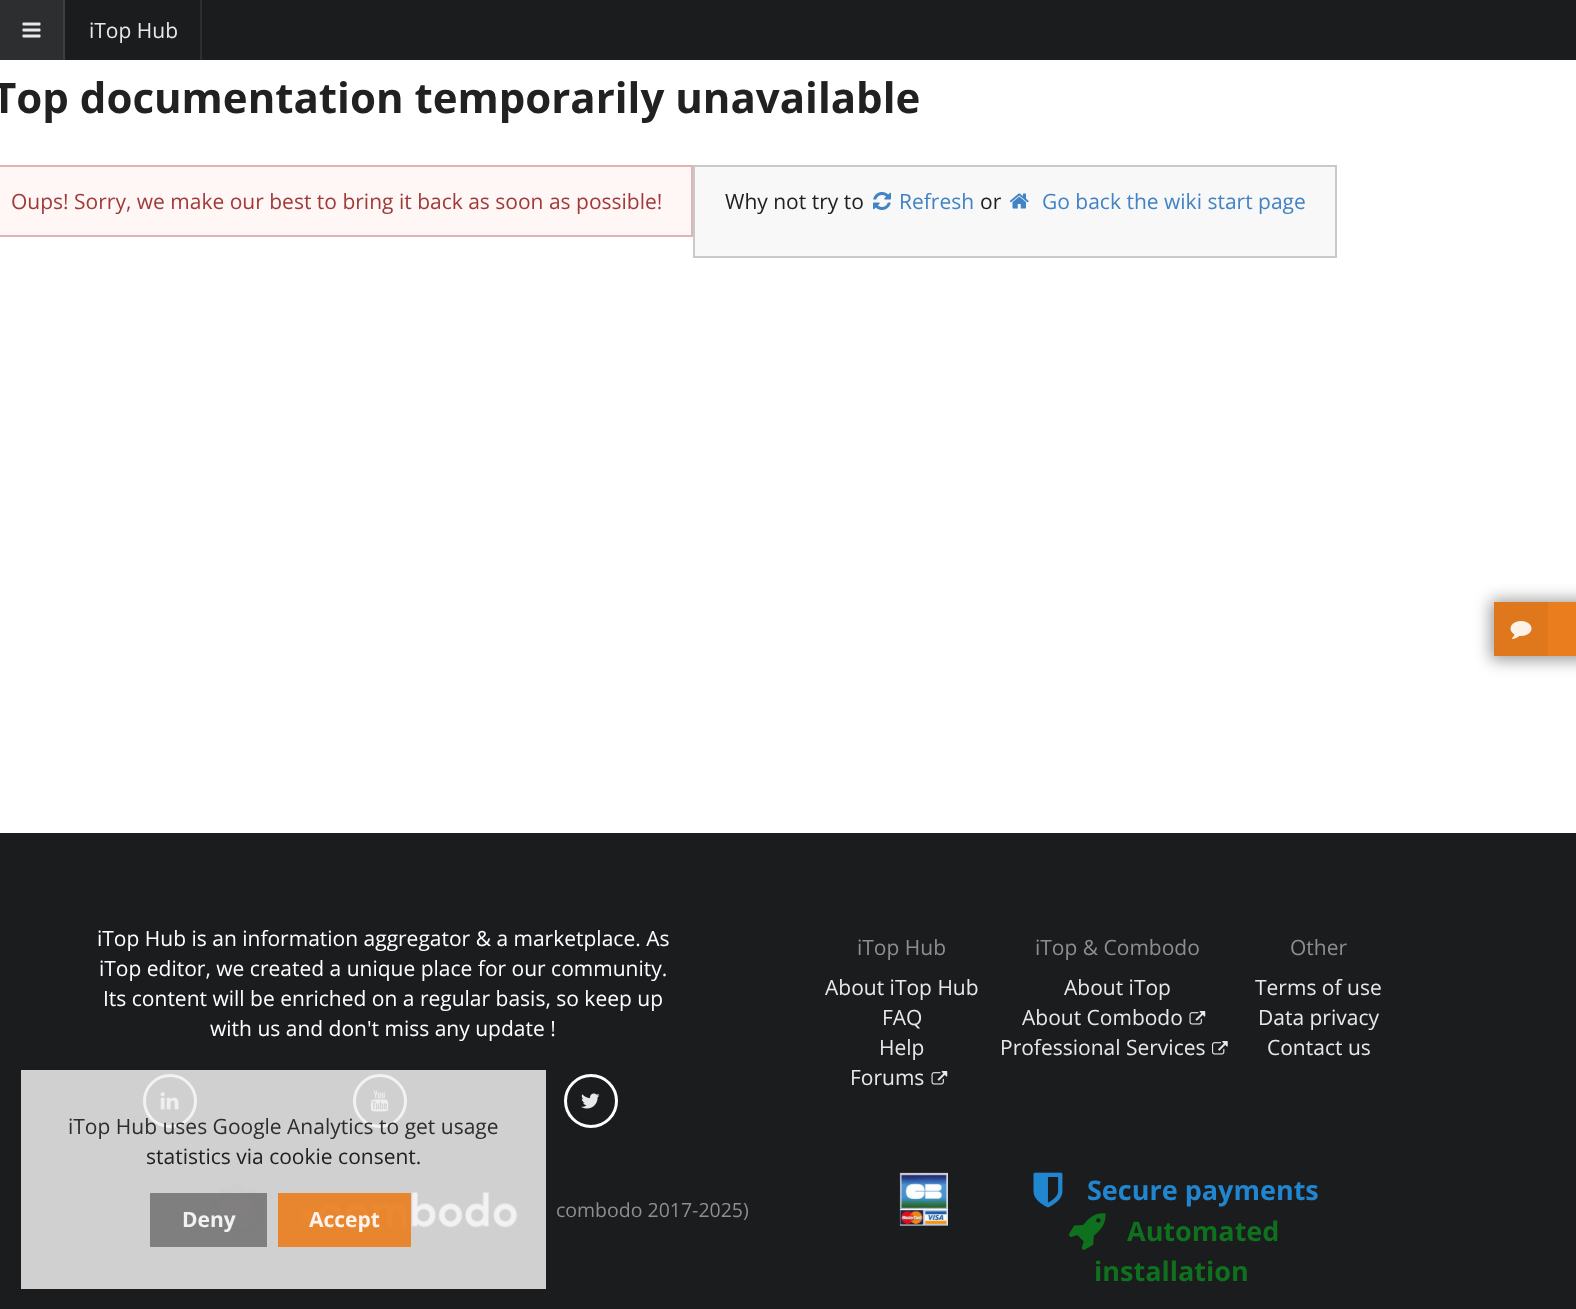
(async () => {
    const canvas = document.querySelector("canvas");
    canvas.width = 1576;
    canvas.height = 1309;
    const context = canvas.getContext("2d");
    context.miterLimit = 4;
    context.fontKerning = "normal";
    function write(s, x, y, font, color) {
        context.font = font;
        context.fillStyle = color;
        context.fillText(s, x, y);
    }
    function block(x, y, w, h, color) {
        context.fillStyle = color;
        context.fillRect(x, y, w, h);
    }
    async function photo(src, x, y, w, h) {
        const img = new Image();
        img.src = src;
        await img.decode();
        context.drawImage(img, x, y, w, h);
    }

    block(0, 0, 1576, 1309, "rgb(255, 255, 255)");
    block(65, 0, 1511, 60, "rgb(27, 28, 29)");
    block(0, 0, 63, 60, "rgb(45, 46, 47)");
    await photo("media/1.png", 22, 22, 19, 16);
    block(63, 0, 2, 60, "rgb(62, 63, 64)");
    write("iTop Hub", 89, 38, "21px Open Sans", "rgb(232, 232, 232)");
    block(200, 0, 2, 60, "rgb(45, 46, 47)");
    write("Top documentation temporarily unavailable", -8, 113, "bold 42px Open Sans", "rgb(33, 33, 33)");
    context.fillStyle = "rgb(255, 246, 246)";
    context.beginPath();
    context.rect(-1, 166, 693, 70);
    context.fill();
    context.strokeStyle = "rgb(224, 180, 180)";
    context.lineWidth = 2;
    context.stroke();
    write("Oups! Sorry, we make our best to bring it back as soon as possible!", 11, 209, "21px Open Sans", "rgb(159, 58, 56)");
    context.fillStyle = "rgb(248, 248, 249)";
    context.beginPath();
    context.rect(694, 166, 642, 91);
    context.fill();
    context.strokeStyle = "rgb(201, 201, 203)";
    context.stroke();
    write("Why not try to", 725, 209, "21px Open Sans", "rgb(33, 33, 33)");
    await photo("media/2.png", 873, 192, 18, 18);
    write("Refresh", 899, 209, "21px Open Sans", "rgb(65, 131, 196)");
    write("or", 980, 209, "21px Open Sans", "rgb(33, 33, 33)");
    await photo("media/3.png", 1009, 193, 20, 16);
    write("Go back the wiki start page", 1042, 209, "21px Open Sans", "rgb(65, 131, 196)");
    context.fillStyle = "rgba(0, 0, 0, 0.4)";
    context.filter = "blur(8px)";
    context.beginPath();
    context.rect(1491, 600, 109, 60);
    context.fill();
    context.filter = "none";
    block(1548, 602, 28, 54, "rgb(234, 125, 30)");
    block(1494, 602, 54, 54, "rgb(223, 119, 29)");
    await photo("media/4.png", 1510, 621, 22, 18);
    block(0, 833, 1576, 476, "rgb(27, 28, 29)");
    write("iTop Hub is an information aggregator & a marketplace. As", 97, 946, "21px Open Sans", "rgb(255, 255, 255)");
    write("iTop editor, we created a unique place for our community.", 99, 976, "21px Open Sans", "rgb(255, 255, 255)");
    write("Its content will be enriched on a regular basis, so keep up", 103, 1006, "21px Open Sans", "rgb(255, 255, 255)");
    write("with us and don't miss any update !", 210, 1036, "21px Open Sans", "rgb(255, 255, 255)");
    context.beginPath();
    context.arc(170, 1101, 25.5, 0, Math.PI * 2);
    context.strokeStyle = "rgb(255, 255, 255)";
    context.lineWidth = 3;
    context.stroke();
    await photo("media/5.png", 160, 1092, 19, 18);
    context.beginPath();
    context.arc(380, 1101, 25.5, 0, Math.PI * 2);
    context.stroke();
    await photo("media/6.png", 370, 1090, 19, 22);
    context.beginPath();
    context.arc(591, 1101, 25.5, 0, Math.PI * 2);
    context.stroke();
    await photo("media/7.png", 581, 1093, 19, 16);
    write("iTop Hub", 857, 955, "21px Open Sans", "rgb(141, 142, 142)");
    write("About iTop Hub", 825, 995, "21px Open Sans", "rgb(232, 232, 232)");
    write("FAQ", 882, 1025, "21px Open Sans", "rgb(232, 232, 232)");
    write("Help", 879, 1055, "21px Open Sans", "rgb(232, 232, 232)");
    write("Forums", 850, 1085, "21px Open Sans", "rgb(232, 232, 232)");
    await photo("media/8.png", 931, 1071, 17, 14);
    write("iTop & Combodo", 1035, 955, "21px Open Sans", "rgb(141, 142, 142)");
    write("About iTop", 1064, 995, "21px Open Sans", "rgb(232, 232, 232)");
    write("About Combodo", 1022, 1025, "21px Open Sans", "rgb(232, 232, 232)");
    await photo("media/8.png", 1189, 1011, 17, 14);
    write("Professional Services", 1000, 1055, "21px Open Sans", "rgb(232, 232, 232)");
    await photo("media/9.png", 1212, 1041, 16, 14);
    write("Other", 1290, 955, "21px Open Sans", "rgb(141, 142, 142)");
    write("Terms of use", 1255, 995, "21px Open Sans", "rgb(232, 232, 232)");
    write("Data privacy", 1258, 1025, "21px Open Sans", "rgb(232, 232, 232)");
    write("Contact us", 1267, 1055, "21px Open Sans", "rgb(232, 232, 232)");
    await photo("media/10.png", 210, 1181, 56, 59);
    await photo("media/11.png", 222, 1198, 30, 26);
    await photo("media/12.png", 300, 1191, 218, 37);
    write("combodo 2017-2025)", 556, 1217, "19.5px Open Sans", "rgb(141, 142, 142)");
    await photo("media/13.png", 899, 1172, 49, 54);
    await photo("media/14.png", 1033, 1172, 30, 36);
    write("Secure payments", 1087, 1200, "bold 27px Open Sans", "rgb(33, 133, 208)");
    await photo("media/15.png", 1068, 1213, 38, 37);
    write("Automated", 1127, 1241, "bold 27px Open Sans", "rgb(15, 112, 30)");
    write("installation", 1094, 1281, "bold 27px Open Sans", "rgb(15, 112, 30)");
    block(21, 1070, 525, 219, "rgba(240, 240, 240, 0.85)");
    write("iTop Hub uses Google Analytics to get usage", 68, 1134, "21px Open Sans", "rgb(45, 45, 45)");
    write("statistics via cookie consent.", 146, 1164, "21px Open Sans", "rgb(33, 33, 33)");
    block(150, 1193, 117, 54, "rgba(118, 118, 118, 0.9)");
    write("Deny", 182, 1227, "bold 21px Open Sans", "rgb(242, 242, 242)");
    block(278, 1193, 133, 54, "rgba(234, 125, 30, 0.9)");
    write("Accept", 309, 1227, "bold 21px Open Sans", "rgb(253, 243, 234)");
})();
